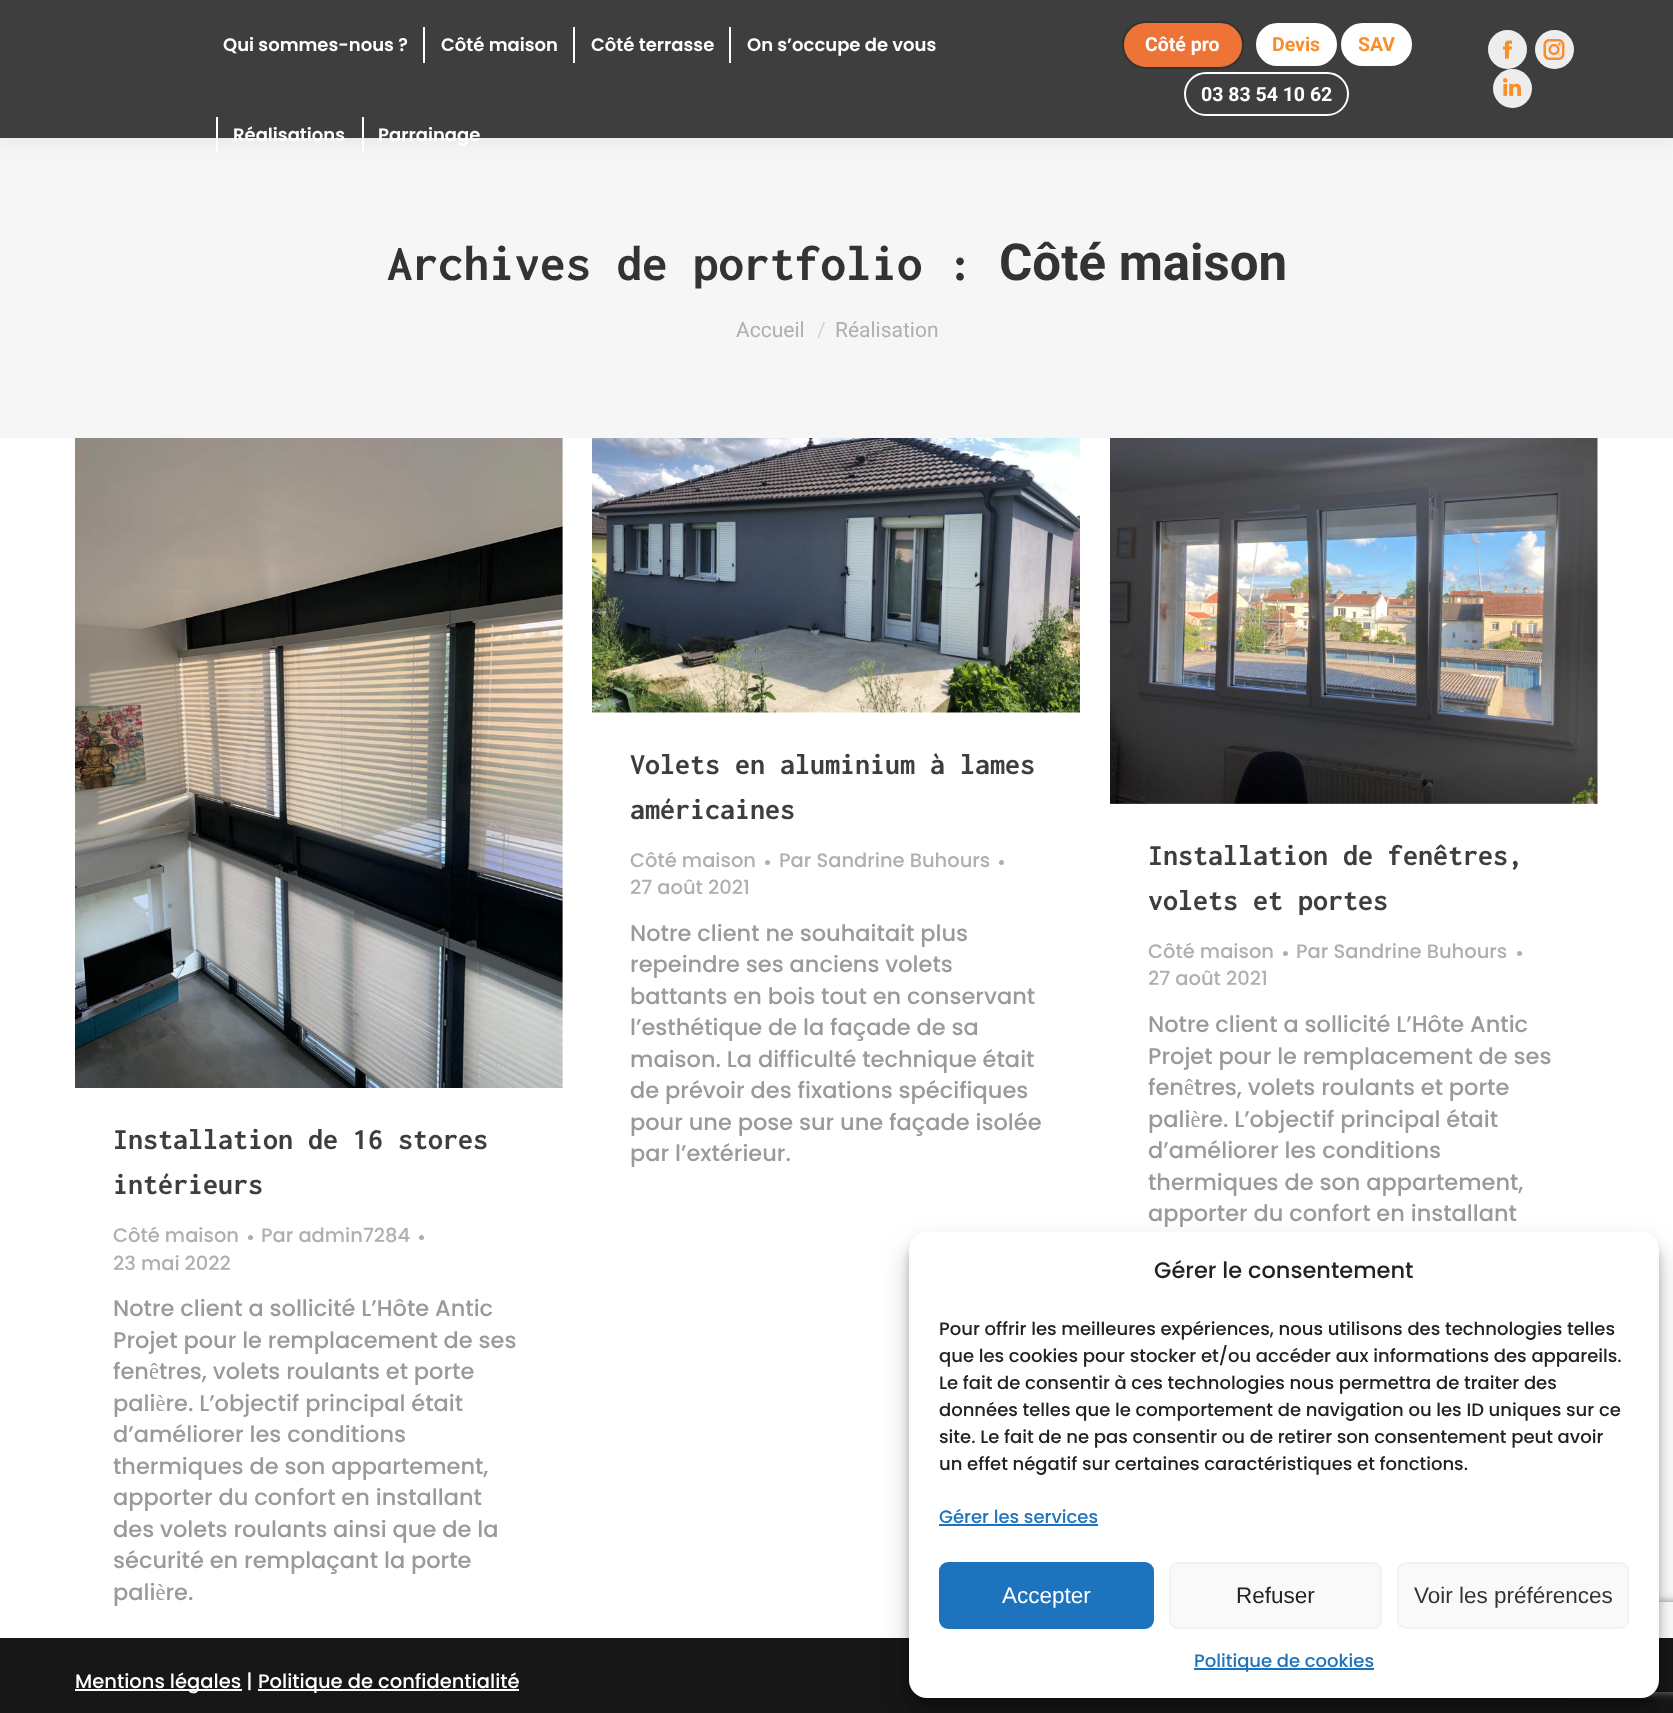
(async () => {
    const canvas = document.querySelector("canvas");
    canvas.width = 1673;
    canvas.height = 1713;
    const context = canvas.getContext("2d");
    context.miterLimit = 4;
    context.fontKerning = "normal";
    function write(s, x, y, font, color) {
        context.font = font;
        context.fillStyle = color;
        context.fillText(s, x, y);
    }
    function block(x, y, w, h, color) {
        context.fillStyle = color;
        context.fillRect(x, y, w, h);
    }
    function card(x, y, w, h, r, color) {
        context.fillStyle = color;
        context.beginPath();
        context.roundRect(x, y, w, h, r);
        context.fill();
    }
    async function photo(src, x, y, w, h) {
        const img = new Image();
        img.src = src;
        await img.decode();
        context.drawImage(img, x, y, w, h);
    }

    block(0, 0, 1673, 1713, "rgb(255, 255, 255)");
    block(0, 138, 1673, 300, "rgb(246, 246, 246)");
    context.fillStyle = "rgba(0, 0, 0, 0.07)";
    context.filter = "blur(11px)";
    context.beginPath();
    context.rect(-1, -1, 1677, 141);
    context.fill();
    context.filter = "none";
    block(0, 0, 1673, 138, "rgb(62, 62, 62)");
    write("Qui sommes-nous ?", 223, 51, "600 18px Poppins", "rgb(255, 255, 255)");
    block(423, 27, 2, 36, "rgb(255, 255, 255)");
    write("Côté maison", 441, 51, "600 18px Poppins", "rgb(255, 255, 255)");
    block(573, 27, 2, 36, "rgb(255, 255, 255)");
    write("Côté terrasse", 591, 51, "600 18px Poppins", "rgb(255, 255, 255)");
    block(729, 27, 2, 36, "rgb(255, 255, 255)");
    write("On s’occupe de vous", 747, 51, "600 18px Poppins", "rgb(255, 255, 255)");
    block(216, 117, 2, 36, "rgb(255, 255, 255)");
    write("Réalisations", 233, 141, "600 18px Poppins", "rgb(255, 255, 255)");
    block(362, 117, 2, 36, "rgb(255, 255, 255)");
    write("Parrainage", 378, 141, "600 18px Poppins", "rgb(255, 255, 255)");
    context.fillStyle = "rgb(238, 115, 55)";
    context.beginPath();
    context.roundRect(1123, 22, 120, 46, 23);
    context.fill();
    context.strokeStyle = "rgb(51, 51, 51)";
    context.lineWidth = 2;
    context.stroke();
    write("Côté pro", 1145, 51, "bold 19.5px Roboto", "rgb(255, 255, 255)");
    context.beginPath();
    context.roundRect(1257, 24, 79, 41, 20.5);
    context.fill();
    context.strokeStyle = "rgb(255, 255, 255)";
    context.stroke();
    write("Devis", 1272, 51, "bold 19.5px Roboto", "rgb(250, 142, 45)");
    context.fillStyle = "rgb(255, 255, 255)";
    context.beginPath();
    context.roundRect(1342, 24, 69, 41, 20.5);
    context.fill();
    context.stroke();
    write("SAV", 1358, 51, "bold 19.5px Roboto", "rgb(250, 142, 45)");
    context.beginPath();
    context.roundRect(1185, 73, 163, 42, 21);
    context.stroke();
    write("03 83 54 10 62", 1201, 101, "bold 19.5px Roboto", "rgb(255, 255, 255)");
    context.beginPath();
    context.arc(1507.5, 49.5, 19.5, 0, Math.PI * 2);
    context.fill();
    context.fillStyle = "rgba(0, 0, 0, 0.07)";
    context.beginPath();
    context.arc(1507.5, 49.5, 19.5, 0, Math.PI * 2);
    context.fill();
    await photo("media/1.png", 1502, 40, 11, 19);
    context.fillStyle = "rgb(255, 255, 255)";
    context.beginPath();
    context.arc(1554.5, 49.5, 19.5, 0, Math.PI * 2);
    context.fill();
    context.fillStyle = "rgba(0, 0, 0, 0.07)";
    context.beginPath();
    context.arc(1554.5, 49.5, 19.5, 0, Math.PI * 2);
    context.fill();
    await photo("media/2.png", 1543, 39, 22, 21);
    context.fillStyle = "rgb(255, 255, 255)";
    context.beginPath();
    context.arc(1512.5, 88.5, 19.5, 0, Math.PI * 2);
    context.fill();
    context.fillStyle = "rgba(0, 0, 0, 0.07)";
    context.beginPath();
    context.arc(1512.5, 88.5, 19.5, 0, Math.PI * 2);
    context.fill();
    await photo("media/3.png", 1503, 78, 18, 18);
    write("Archives de portfolio :", 387, 280, "bold 51px Inconsolata", "rgb(51, 51, 51)");
    write("Côté maison", 999, 280, "bold 51px Roboto", "rgb(51, 51, 51)");
    write("Accueil", 736, 337, "21px Roboto", "rgb(173, 175, 179)");
    write("/", 817, 337, "21px Roboto", "rgb(210, 211, 213)");
    write("Réalisation", 835, 337, "21px Roboto", "rgb(173, 175, 179)");
    await photo("media/4.png", 592, 438, 488, 275);
    write("Volets en aluminium à lames", 630, 774, "bold 30px Inconsolata", "rgb(62, 62, 62)");
    write("américaines", 630, 819, "bold 30px Inconsolata", "rgb(62, 62, 62)");
    write("Côté maison", 630, 867, "500 19.5px Poppins", "rgb(173, 175, 179)");
    context.beginPath();
    context.arc(767.5, 862.5, 2.5, 0, Math.PI * 2);
    context.fill();
    write("Par Sandrine Buhours", 779, 867, "500 19.5px Poppins", "rgb(173, 175, 179)");
    context.beginPath();
    context.arc(1001.5, 862.5, 2.5, 0, Math.PI * 2);
    context.fill();
    write("27 août 2021", 630, 894, "500 19.5px Poppins", "rgb(173, 175, 179)");
    write("Notre client ne souhaitait plus", 630, 941, "500 22.5px Poppins", "rgb(154, 154, 154)");
    write("repeindre ses anciens volets", 630, 972, "500 22.5px Poppins", "rgb(154, 154, 154)");
    write("battants en bois tout en conservant", 630, 1004, "500 22.5px Poppins", "rgb(154, 154, 154)");
    write("l’esthétique de la façade de sa", 630, 1035, "500 22.5px Poppins", "rgb(154, 154, 154)");
    write("maison. La difficulté technique était", 630, 1067, "500 22.5px Poppins", "rgb(154, 154, 154)");
    write("de prévoir des fixations spécifiques", 630, 1098, "500 22.5px Poppins", "rgb(154, 154, 154)");
    write("pour une pose sur une façade isolée", 630, 1130, "500 22.5px Poppins", "rgb(154, 154, 154)");
    write("par l’extérieur.", 630, 1161, "500 22.5px Poppins", "rgb(154, 154, 154)");
    await photo("media/5.png", 1110, 438, 488, 366);
    write("Installation de fenêtres,", 1148, 865, "bold 30px Inconsolata", "rgb(62, 62, 62)");
    write("volets et portes", 1148, 910, "bold 30px Inconsolata", "rgb(62, 62, 62)");
    write("Côté maison", 1148, 958, "500 19.5px Poppins", "rgb(173, 175, 179)");
    context.beginPath();
    context.arc(1285.5, 953.5, 2.5, 0, Math.PI * 2);
    context.fill();
    write("Par Sandrine Buhours", 1296, 958, "500 19.5px Poppins", "rgb(173, 175, 179)");
    context.beginPath();
    context.arc(1519.5, 953.5, 2.5, 0, Math.PI * 2);
    context.fill();
    write("27 août 2021", 1148, 985, "500 19.5px Poppins", "rgb(173, 175, 179)");
    write("Notre client a sollicité L’Hôte Antic", 1148, 1032, "500 22.5px Poppins", "rgb(154, 154, 154)");
    write("Projet pour le remplacement de ses", 1148, 1064, "500 22.5px Poppins", "rgb(154, 154, 154)");
    write("fenêtres, volets roulants et porte", 1148, 1095, "500 22.5px Poppins", "rgb(154, 154, 154)");
    write("palière. L’objectif principal était", 1148, 1127, "500 22.5px Poppins", "rgb(154, 154, 154)");
    write("d’améliorer les conditions", 1148, 1158, "500 22.5px Poppins", "rgb(154, 154, 154)");
    write("thermiques de son appartement,", 1148, 1190, "500 22.5px Poppins", "rgb(154, 154, 154)");
    write("apporter du confort en installant", 1148, 1221, "500 22.5px Poppins", "rgb(154, 154, 154)");
    await photo("media/6.png", 75, 438, 488, 650);
    write("Installation de 16 stores", 113, 1149, "bold 30px Inconsolata", "rgb(62, 62, 62)");
    write("intérieurs", 113, 1194, "bold 30px Inconsolata", "rgb(62, 62, 62)");
    write("Côté maison", 113, 1242, "500 19.5px Poppins", "rgb(173, 175, 179)");
    context.beginPath();
    context.arc(250.5, 1237.5, 2.5, 0, Math.PI * 2);
    context.fill();
    write("Par admin7284", 261, 1242, "500 19.5px Poppins", "rgb(173, 175, 179)");
    context.beginPath();
    context.arc(421.5, 1237.5, 2.5, 0, Math.PI * 2);
    context.fill();
    write("23 mai 2022", 113, 1270, "500 19.5px Poppins", "rgb(173, 175, 179)");
    write("Notre client a sollicité L’Hôte Antic", 113, 1316, "500 22.5px Poppins", "rgb(154, 154, 154)");
    write("Projet pour le remplacement de ses", 113, 1348, "500 22.5px Poppins", "rgb(154, 154, 154)");
    write("fenêtres, volets roulants et porte", 113, 1379, "500 22.5px Poppins", "rgb(154, 154, 154)");
    write("palière. L’objectif principal était", 113, 1411, "500 22.5px Poppins", "rgb(154, 154, 154)");
    write("d’améliorer les conditions", 113, 1442, "500 22.5px Poppins", "rgb(154, 154, 154)");
    write("thermiques de son appartement,", 113, 1474, "500 22.5px Poppins", "rgb(154, 154, 154)");
    write("apporter du confort en installant", 113, 1505, "500 22.5px Poppins", "rgb(154, 154, 154)");
    write("des volets roulants ainsi que de la", 113, 1537, "500 22.5px Poppins", "rgb(154, 154, 154)");
    write("sécurité en remplaçant la porte", 113, 1568, "500 22.5px Poppins", "rgb(154, 154, 154)");
    write("palière.", 113, 1600, "500 22.5px Poppins", "rgb(154, 154, 154)");
    block(0, 1638, 1673, 75, "rgb(23, 23, 23)");
    block(75, 1689, 167, 2, "rgb(255, 255, 255)");
    write("Mentions légales |", 75, 1688, "500 19.5px Poppins", "rgb(255, 255, 255)");
    block(258, 1689, 261, 2, "rgb(255, 255, 255)");
    write("Politique de confidentialité", 258, 1688, "500 19.5px Poppins", "rgb(255, 255, 255)");
    context.fillStyle = "rgba(0, 0, 0, 0.23)";
    context.filter = "blur(4.5px)";
    context.beginPath();
    context.roundRect(909, 1241, 750, 466, 18);
    context.fill();
    context.filter = "none";
    context.fillStyle = "rgba(0, 0, 0, 0.19)";
    context.filter = "blur(15px)";
    context.beginPath();
    context.roundRect(909, 1247, 750, 466, 18);
    context.fill();
    context.filter = "none";
    context.save();
    context.beginPath();
    context.moveTo(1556, 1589);
    context.lineTo(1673, 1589);
    context.lineTo(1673, 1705);
    context.lineTo(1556, 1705);
    context.closePath();
    context.moveTo(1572, 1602);
    context.lineTo(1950, 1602);
    context.bezierCurveTo(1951.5, 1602, 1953, 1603.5, 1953, 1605);
    context.lineTo(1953, 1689);
    context.bezierCurveTo(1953, 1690.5, 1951.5, 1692, 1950, 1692);
    context.lineTo(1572, 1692);
    context.bezierCurveTo(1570.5, 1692, 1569, 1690.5, 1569, 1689);
    context.lineTo(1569, 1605);
    context.bezierCurveTo(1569, 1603.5, 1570.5, 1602, 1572, 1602);
    context.closePath();
    context.clip("evenodd");
    context.fillStyle = "rgb(128, 128, 128)";
    context.filter = "blur(4px)";
    context.beginPath();
    context.roundRect(1569, 1602, 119, 90, 3);
    context.fill();
    context.filter = "none";
    context.restore();
    card(909, 1232, 750, 466, 18, "rgb(255, 255, 255)");
    write("Gérer le consentement", 1154, 1278, "500 22.5px Poppins", "rgb(34, 34, 34)");
    write("Pour offrir les meilleures expériences, nous utilisons des technologies telles", 939, 1335, "500 18px Poppins", "rgb(34, 34, 34)");
    write("que les cookies pour stocker et/ou accéder aux informations des appareils.", 939, 1362, "500 18px Poppins", "rgb(34, 34, 34)");
    write("Le fait de consentir à ces technologies nous permettra de traiter des", 939, 1389, "500 18px Poppins", "rgb(34, 34, 34)");
    write("données telles que le comportement de navigation ou les ID uniques sur ce", 939, 1416, "500 18px Poppins", "rgb(34, 34, 34)");
    write("site. Le fait de ne pas consentir ou de retirer son consentement peut avoir", 939, 1443, "500 18px Poppins", "rgb(34, 34, 34)");
    write("un effet négatif sur certaines caractéristiques et fonctions.", 939, 1470, "500 18px Poppins", "rgb(34, 34, 34)");
    write("Gérer les services", 939, 1523, "500 18px Poppins", "rgb(30, 115, 190)");
    block(939, 1524, 159, 2, "rgb(30, 115, 190)");
    context.beginPath();
    context.roundRect(940, 1563, 213, 65, 8);
    context.fill();
    context.strokeStyle = "rgb(30, 115, 190)";
    context.stroke();
    write("Accepter", 1002, 1603, "22.5px Liberation Sans", "rgb(255, 255, 255)");
    context.fillStyle = "rgb(249, 249, 249)";
    context.beginPath();
    context.roundRect(1170, 1563, 211, 65, 8);
    context.fill();
    context.strokeStyle = "rgb(242, 242, 242)";
    context.stroke();
    write("Refuser", 1236, 1603, "22.5px Liberation Sans", "rgb(34, 34, 34)");
    context.fillStyle = "rgb(249, 249, 249)";
    context.beginPath();
    context.roundRect(1398, 1563, 230, 65, 8);
    context.fill();
    context.stroke();
    write("Voir les préférences", 1414, 1603, "22.5px Liberation Sans", "rgb(51, 51, 51)");
    block(1194, 1668, 180, 2, "rgb(30, 115, 190)");
    write("Politique de cookies", 1194, 1667, "500 18px Poppins", "rgb(30, 115, 190)");
})();
